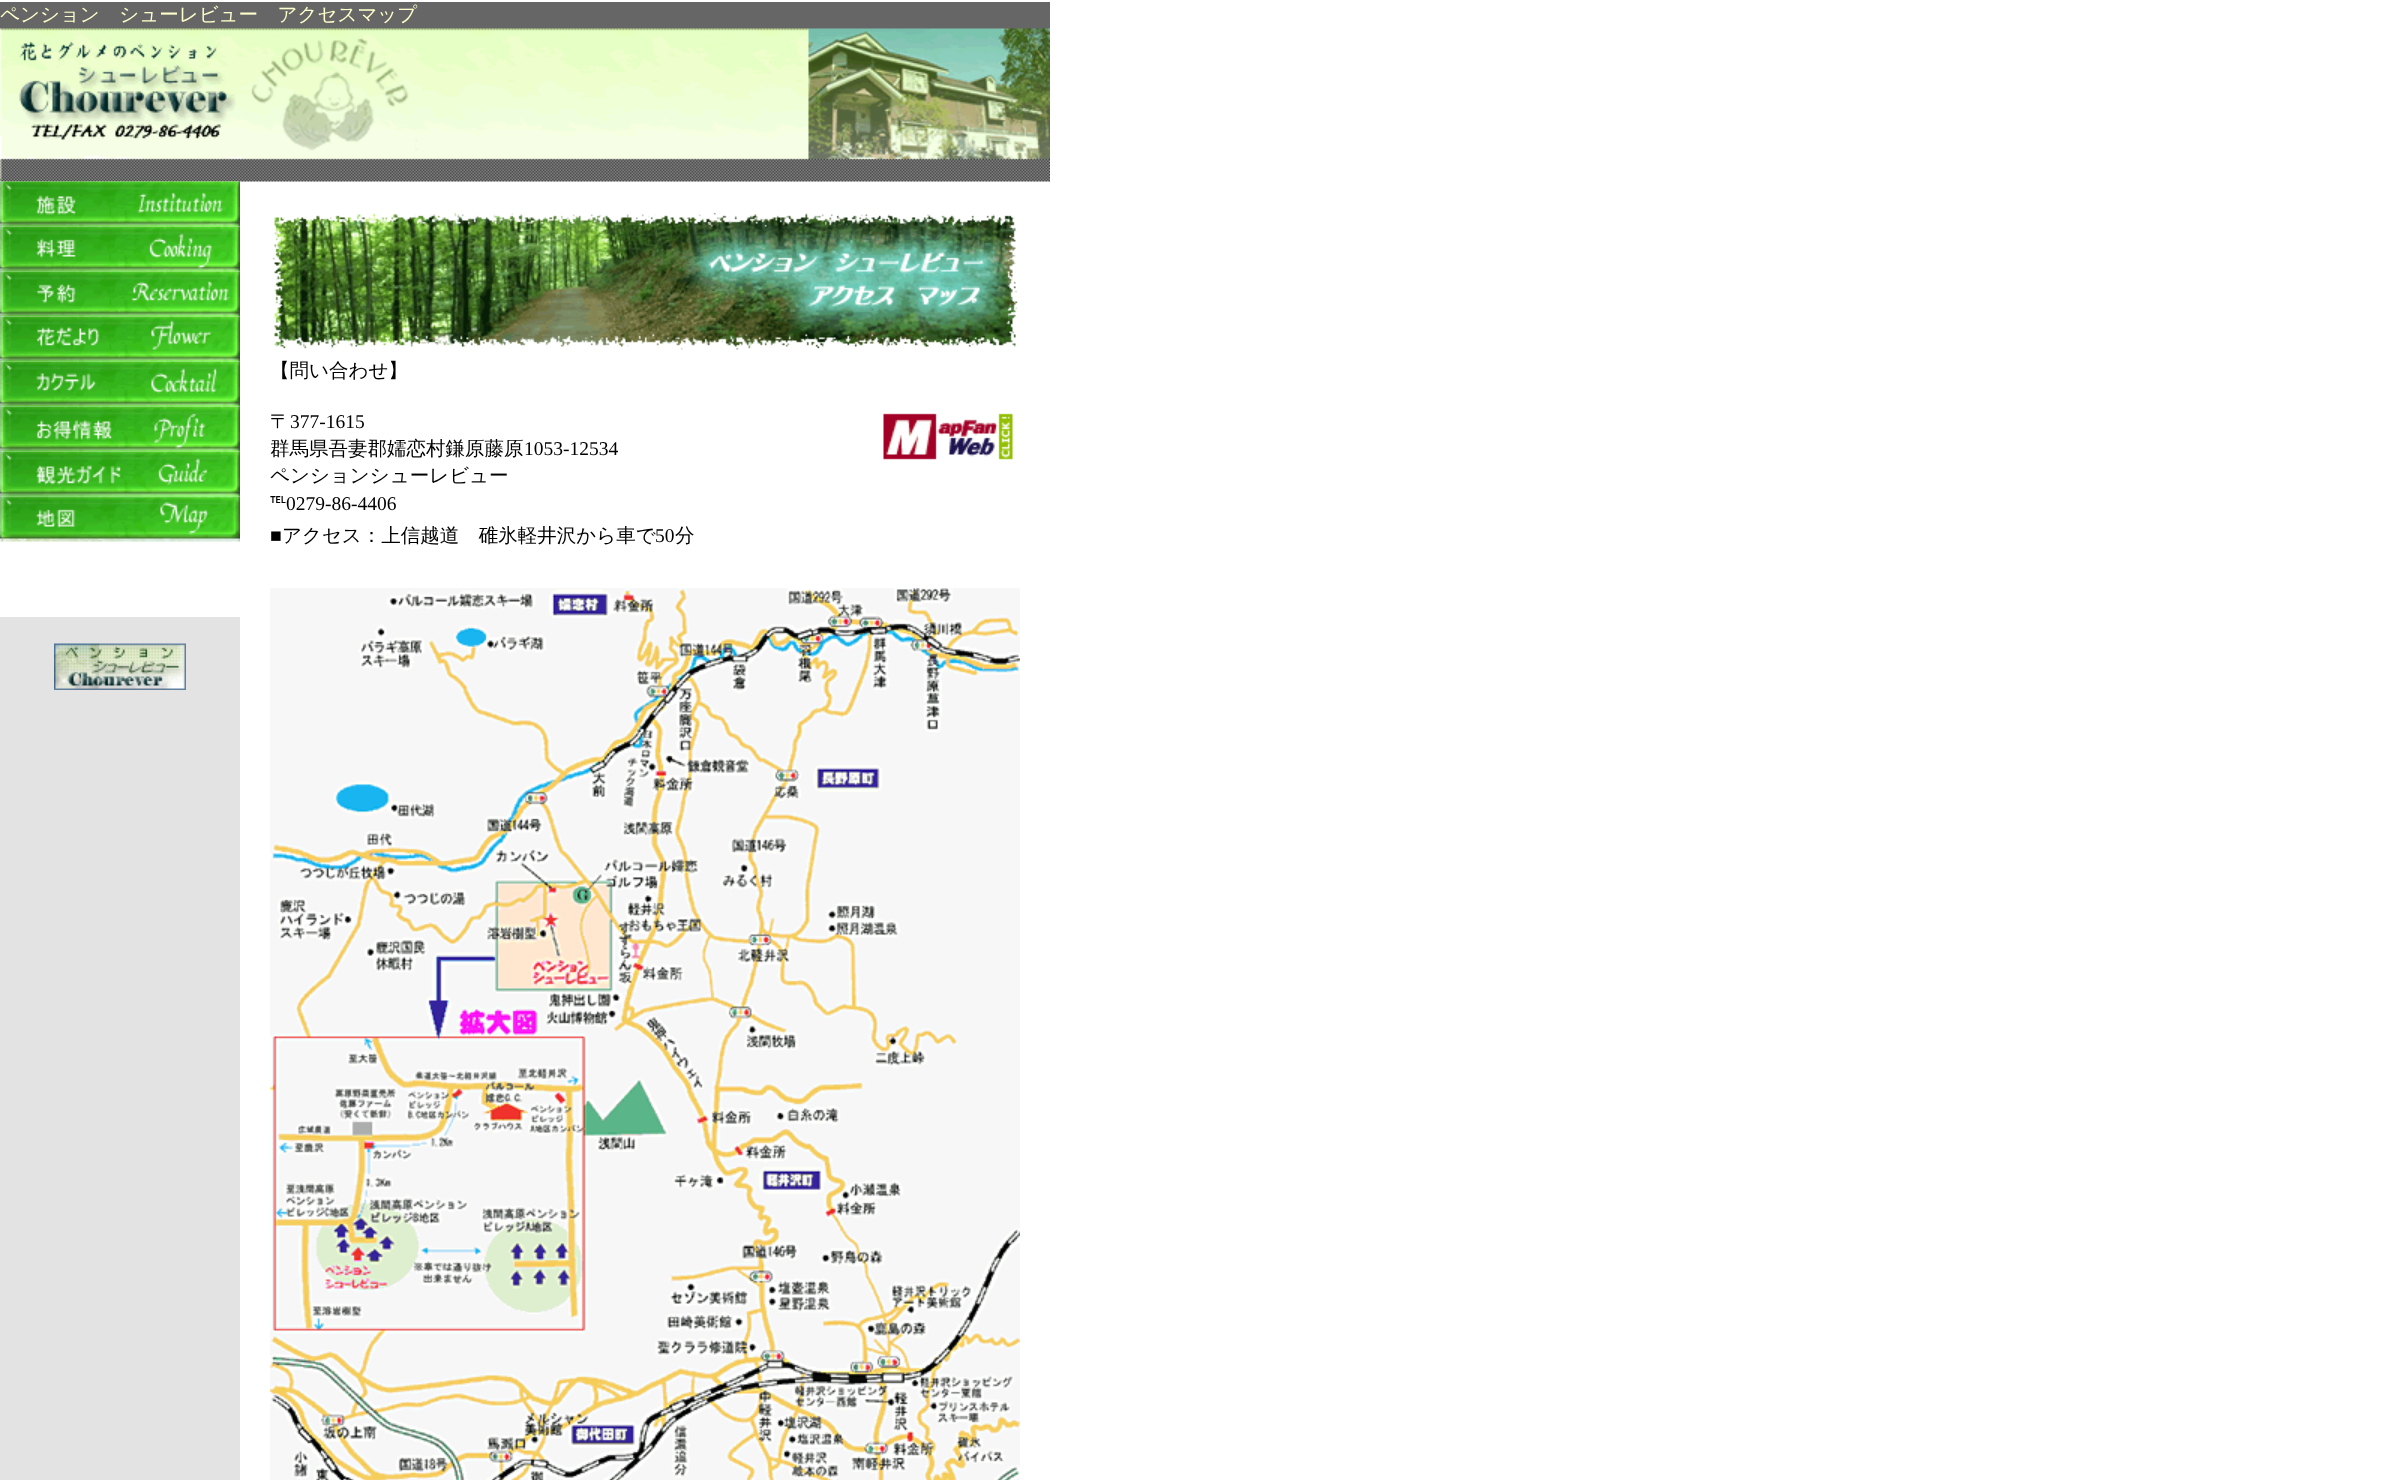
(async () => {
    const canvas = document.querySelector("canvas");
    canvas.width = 2391;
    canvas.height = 1480;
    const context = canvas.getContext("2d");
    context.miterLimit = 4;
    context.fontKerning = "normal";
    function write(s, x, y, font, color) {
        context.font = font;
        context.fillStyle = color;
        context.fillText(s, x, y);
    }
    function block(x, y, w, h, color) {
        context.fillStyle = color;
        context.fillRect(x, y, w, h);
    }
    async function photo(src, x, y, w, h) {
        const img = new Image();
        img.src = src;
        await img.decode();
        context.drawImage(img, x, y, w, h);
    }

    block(0, 0, 2391, 1480, "rgb(255, 255, 255)");
    block(0, 2, 1050, 27, "rgb(102, 102, 102)");
    write("ペンション　シューレビュー　アクセスマップ", 0, 21, "500 19.5px WenQuanYi Zen Hei", "rgb(255, 255, 204)");
    await photo("media/1.png", 0, 28, 1050, 154);
    await photo("media/6.png", 0, 181, 240, 46);
    await photo("media/2.png", 0, 226, 240, 46);
    await photo("media/3.png", 0, 271, 240, 46);
    await photo("media/4.png", 0, 316, 240, 46);
    await photo("media/5.png", 0, 361, 240, 46);
    await photo("media/7.png", 272, 213, 746, 137);
    write("【問い合わせ】", 270, 377, "500 19.5px WenQuanYi Zen Hei", "rgb(0, 0, 0)");
    write("〒", 270, 428, "500 19.5px WenQuanYi Zen Hei", "rgb(0, 0, 0)");
    write("377-1615", 290, 428, "19.5px Liberation Serif", "rgb(0, 0, 0)");
    write("群馬県吾妻郡嬬恋村鎌原藤原", 270, 455, "500 19.5px WenQuanYi Zen Hei", "rgb(0, 0, 0)");
    write("1053-12534", 524, 455, "19.5px Liberation Serif", "rgb(0, 0, 0)");
    write("ペンションシューレビュー", 270, 482, "500 19.5px WenQuanYi Zen Hei", "rgb(0, 0, 0)");
    write("℡", 270, 510, "19.5px Noto Sans", "rgb(0, 0, 0)");
    write("0279-86-4406", 286, 510, "19.5px Liberation Serif", "rgb(0, 0, 0)");
    await photo("media/8.png", 883, 413, 130, 47);
    write("■", 270, 542, "19.5px Liberation Serif", "rgb(0, 0, 0)");
    write("アクセス：上信越道　碓氷軽井沢から車で", 282, 542, "500 19.5px WenQuanYi Zen Hei", "rgb(0, 0, 0)");
    write("50", 655, 542, "19.5px Liberation Serif", "rgb(0, 0, 0)");
    write("分", 675, 542, "500 19.5px WenQuanYi Zen Hei", "rgb(0, 0, 0)");
    await photo("media/9.png", 270, 588, 750, 892);
    await photo("media/10.png", 0, 406, 240, 46);
    await photo("media/11.png", 0, 451, 240, 46);
    await photo("media/12.png", 0, 496, 240, 46);
    block(0, 617, 240, 863, "rgb(227, 227, 227)");
    await photo("media/13.png", 54, 643, 132, 47);
})();
